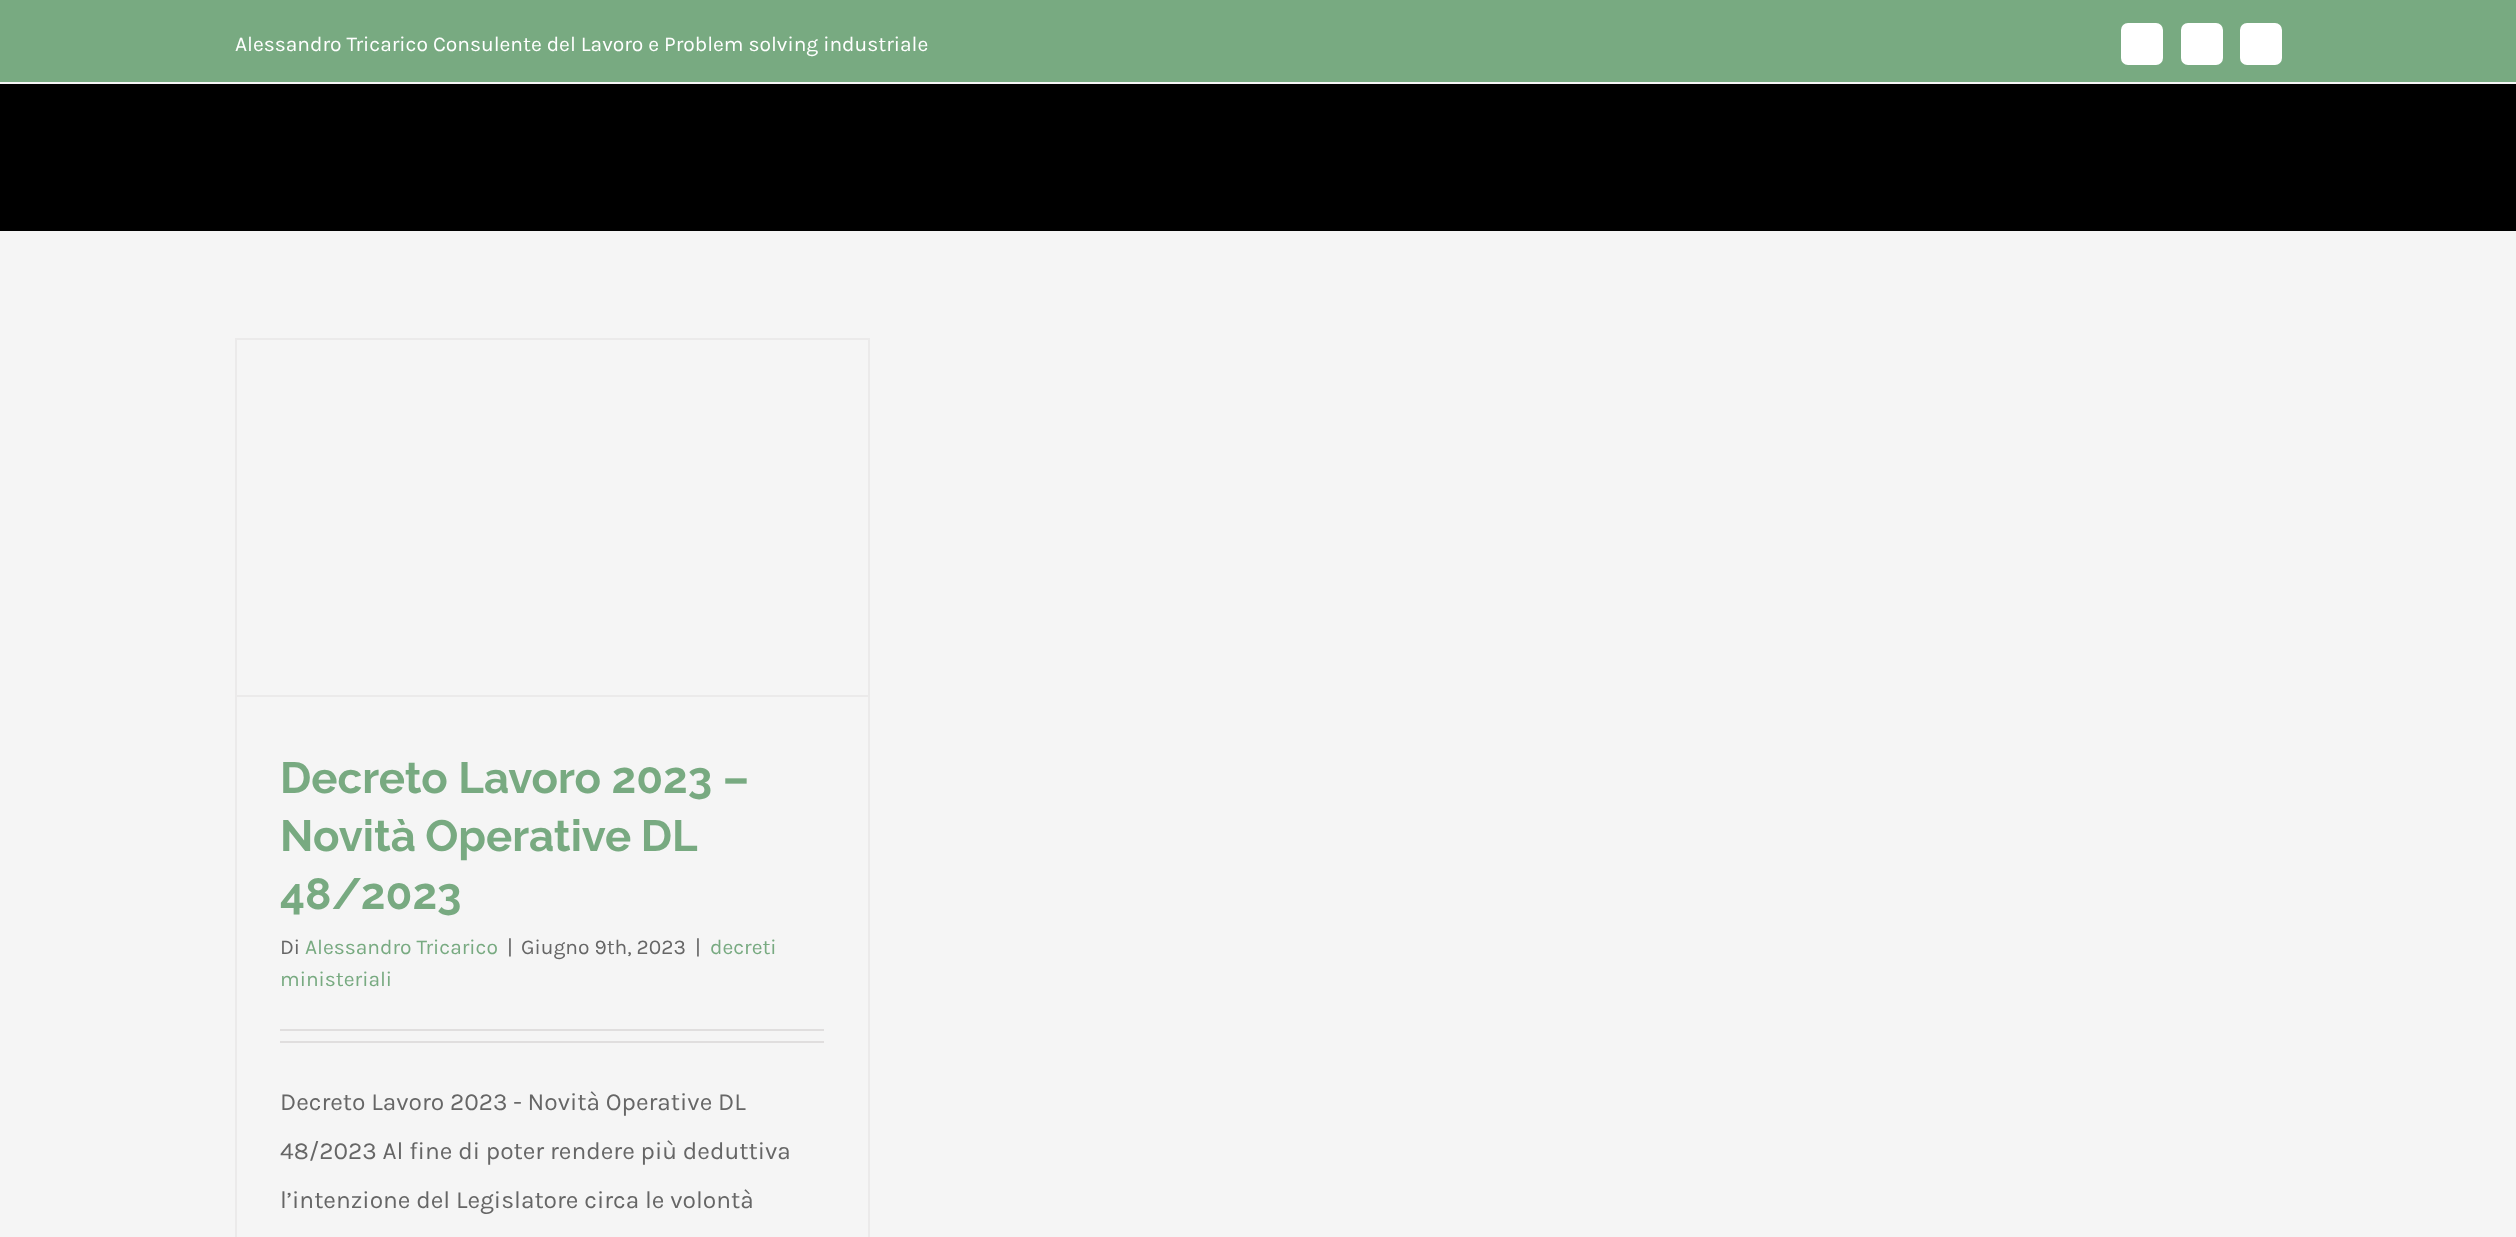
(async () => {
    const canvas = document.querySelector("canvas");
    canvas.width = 2516;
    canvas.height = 1237;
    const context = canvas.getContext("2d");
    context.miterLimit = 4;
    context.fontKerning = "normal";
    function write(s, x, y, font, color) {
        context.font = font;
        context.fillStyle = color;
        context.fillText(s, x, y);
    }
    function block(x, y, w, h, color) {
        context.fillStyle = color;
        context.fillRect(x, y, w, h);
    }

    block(0, 0, 2516, 1237, "rgb(245, 245, 245)");
    block(0, 0, 2516, 82, "rgb(120, 170, 129)");
    write("Alessandro Tricarico Consulente del Lavoro e Problem solving industriale", 235, 51, "21px Karla", "rgb(255, 255, 255)");
    context.beginPath();
    context.roundRect(2122, 24, 40, 40, 6);
    context.fill();
    context.strokeStyle = "rgb(255, 255, 255)";
    context.lineWidth = 2;
    context.stroke();
    context.beginPath();
    context.roundRect(2182, 24, 40, 40, 6);
    context.fill();
    context.stroke();
    context.beginPath();
    context.roundRect(2241, 24, 40, 40, 6);
    context.fill();
    context.stroke();
    block(0, 84, 2516, 147, "rgb(0, 0, 0)");
    block(235, 338, 635, 2, "rgb(235, 234, 234)");
    block(868, 338, 2, 899, "rgb(235, 234, 234)");
    block(235, 338, 2, 899, "rgb(235, 234, 234)");
    block(236, 695, 632, 2, "rgb(235, 234, 234)");
    write("Decreto Lavoro 2023 –", 280, 793, "bold 43.75px Raleway", "rgb(120, 170, 129)");
    context.wordSpacing = "-1px";
    write("Novità Operative DL", 280, 851, "bold 43.75px Raleway", "rgb(120, 170, 129)");
    context.wordSpacing = "0px";
    write("48/2023", 280, 909, "bold 43.75px Raleway", "rgb(120, 170, 129)");
    write("Di", 280, 954, "21px Karla", "rgb(102, 102, 102)");
    write("Alessandro Tricarico", 305, 954, "21px Karla", "rgb(120, 170, 129)");
    write("|", 507, 954, "21px Karla", "rgb(102, 102, 102)");
    write("Giugno 9th, 2023", 521, 954, "21px Karla", "rgb(102, 102, 102)");
    write("|", 695, 954, "21px Karla", "rgb(102, 102, 102)");
    write("decreti", 710, 954, "21px Karla", "rgb(120, 170, 129)");
    write("ministeriali", 280, 986, "21px Karla", "rgb(120, 170, 129)");
    block(280, 1029, 544, 2, "rgb(224, 222, 222)");
    block(280, 1041, 544, 2, "rgb(224, 222, 222)");
    write("Decreto Lavoro 2023 - Novità Operative DL", 280, 1110, "24.5px Karla", "rgb(102, 102, 102)");
    write("48/2023 Al fine di poter rendere più deduttiva", 280, 1159, "24.5px Karla", "rgb(102, 102, 102)");
    write("l’intenzione del Legislatore circa le volontà", 280, 1208, "24.5px Karla", "rgb(102, 102, 102)");
})();
